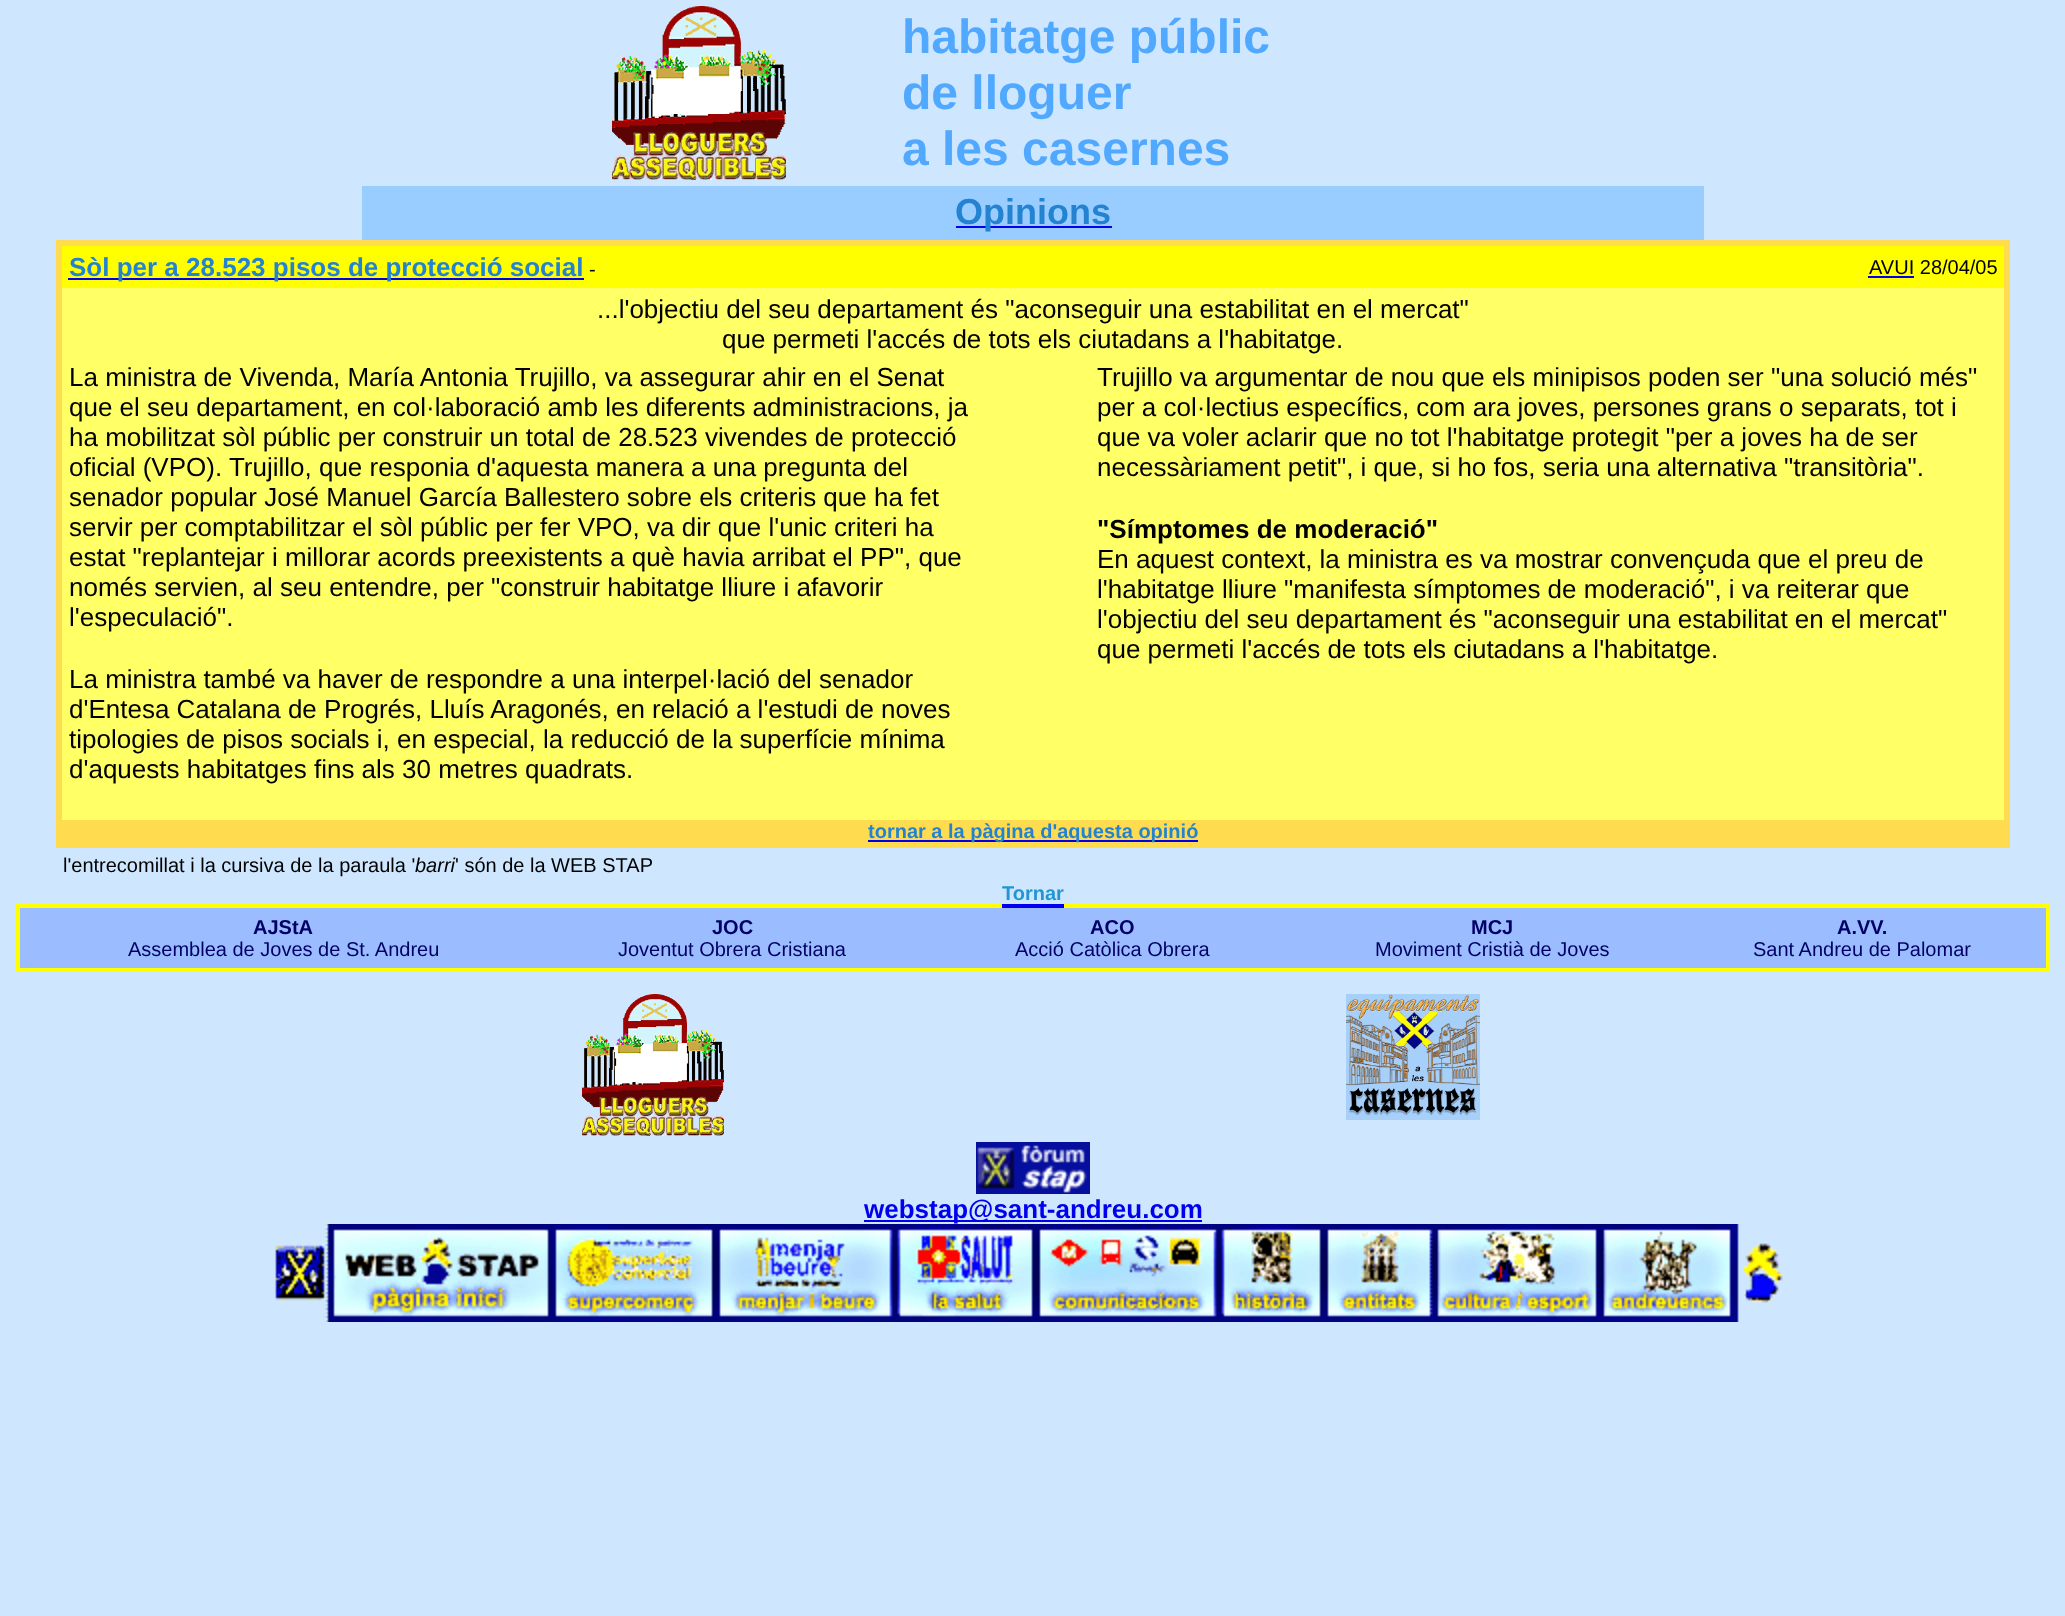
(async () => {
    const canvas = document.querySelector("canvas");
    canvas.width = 2065;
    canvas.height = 1616;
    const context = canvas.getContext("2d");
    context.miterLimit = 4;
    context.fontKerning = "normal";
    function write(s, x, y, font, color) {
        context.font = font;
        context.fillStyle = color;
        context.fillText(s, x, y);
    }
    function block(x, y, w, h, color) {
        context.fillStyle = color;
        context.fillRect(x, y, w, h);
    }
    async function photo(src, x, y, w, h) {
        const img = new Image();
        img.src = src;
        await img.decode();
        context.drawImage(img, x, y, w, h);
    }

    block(0, 0, 2065, 1616, "rgb(206, 231, 255)");
    await photo("media/1.png", 612, 6, 174, 174);
    write("habitatge públic", 902, 53, "bold 48px Liberation Sans", "rgb(81, 168, 255)");
    write("de lloguer", 902, 109, "bold 48px Liberation Sans", "rgb(81, 168, 255)");
    write("a les casernes", 902, 165, "bold 48px Liberation Sans", "rgb(81, 168, 255)");
    block(362, 186, 1342, 54, "rgb(153, 204, 255)");
    block(956, 226, 156, 2, "rgb(0, 0, 238)");
    write("Opinions", 955, 224, "bold 36px Liberation Sans", "rgb(35, 131, 209)");
    block(56, 240, 1954, 608, "rgb(255, 220, 79)");
    block(62, 246, 1942, 42, "rgb(255, 255, 0)");
    block(68, 278, 516, 2, "rgb(0, 0, 238)");
    write("Sòl per a 28.523 pisos de protecció social", 69, 276, "bold 26px Liberation Sans", "rgb(35, 131, 209)");
    write("-", 589, 276, "20px Liberation Sans", "rgb(0, 0, 0)");
    write("AVUI 28/04/05", 1869, 274, "20px Liberation Sans", "rgb(0, 0, 0)");
    block(1868, 276, 46, 2, "rgb(0, 0, 238)");
    block(62, 288, 1942, 532, "rgb(255, 255, 102)");
    write("...l'objectiu del seu departament és \"aconseguir una estabilitat en el mercat\"", 597, 318, "26px Liberation Sans", "rgb(0, 0, 0)");
    write("que permeti l'accés de tots els ciutadans a l'habitatge.", 722, 348, "26px Liberation Sans", "rgb(0, 0, 0)");
    write("La ministra de Vivenda, María Antonia Trujillo, va assegurar ahir en el Senat", 69, 386, "26px Liberation Sans", "rgb(0, 0, 0)");
    write("que el seu departament, en col·laboració amb les diferents administracions, ja", 69, 416, "26px Liberation Sans", "rgb(0, 0, 0)");
    write("ha mobilitzat sòl públic per construir un total de 28.523 vivendes de protecció", 69, 446, "26px Liberation Sans", "rgb(0, 0, 0)");
    write("oficial (VPO). Trujillo, que responia d'aquesta manera a una pregunta del", 69, 476, "26px Liberation Sans", "rgb(0, 0, 0)");
    write("senador popular José Manuel García Ballestero sobre els criteris que ha fet", 69, 506, "26px Liberation Sans", "rgb(0, 0, 0)");
    write("servir per comptabilitzar el sòl públic per fer VPO, va dir que l'unic criteri ha", 69, 536, "26px Liberation Sans", "rgb(0, 0, 0)");
    write("estat \"replantejar i millorar acords preexistents a què havia arribat el PP\", que", 69, 566, "26px Liberation Sans", "rgb(0, 0, 0)");
    write("només servien, al seu entendre, per \"construir habitatge lliure i afavorir", 69, 596, "26px Liberation Sans", "rgb(0, 0, 0)");
    write("l'especulació\".", 69, 626, "26px Liberation Sans", "rgb(0, 0, 0)");
    write("La ministra també va haver de respondre a una interpel·lació del senador", 69, 688, "26px Liberation Sans", "rgb(0, 0, 0)");
    write("d'Entesa Catalana de Progrés, Lluís Aragonés, en relació a l'estudi de noves", 69, 718, "26px Liberation Sans", "rgb(0, 0, 0)");
    write("tipologies de pisos socials i, en especial, la reducció de la superfície mínima", 69, 748, "26px Liberation Sans", "rgb(0, 0, 0)");
    write("d'aquests habitatges fins als 30 metres quadrats.", 69, 778, "26px Liberation Sans", "rgb(0, 0, 0)");
    write("Trujillo va argumentar de nou que els minipisos poden ser \"una solució més\"", 1097, 386, "26px Liberation Sans", "rgb(0, 0, 0)");
    write("per a col·lectius específics, com ara joves, persones grans o separats, tot i", 1097, 416, "26px Liberation Sans", "rgb(0, 0, 0)");
    write("que va voler aclarir que no tot l'habitatge protegit \"per a joves ha de ser", 1097, 446, "26px Liberation Sans", "rgb(0, 0, 0)");
    write("necessàriament petit\", i que, si ho fos, seria una alternativa \"transitòria\".", 1097, 476, "26px Liberation Sans", "rgb(0, 0, 0)");
    write("\"Símptomes de moderació\"", 1097, 538, "bold 26px Liberation Sans", "rgb(0, 0, 0)");
    write("En aquest context, la ministra es va mostrar convençuda que el preu de", 1097, 568, "26px Liberation Sans", "rgb(0, 0, 0)");
    write("l'habitatge lliure \"manifesta símptomes de moderació\", i va reiterar que", 1097, 598, "26px Liberation Sans", "rgb(0, 0, 0)");
    write("l'objectiu del seu departament és \"aconseguir una estabilitat en el mercat\"", 1097, 628, "26px Liberation Sans", "rgb(0, 0, 0)");
    write("que permeti l'accés de tots els ciutadans a l'habitatge.", 1097, 658, "26px Liberation Sans", "rgb(0, 0, 0)");
    block(868, 840, 330, 2, "rgb(0, 0, 238)");
    write("tornar a la pàgina d'aquesta opinió", 868, 838, "bold 20px Liberation Sans", "rgb(35, 131, 209)");
    write("l'entrecomillat i la cursiva de la paraula '", 63, 872, "20px Liberation Sans", "rgb(0, 0, 0)");
    write("barri", 415, 872, "italic 20px Liberation Sans", "rgb(0, 0, 0)");
    write("' són de la WEB STAP", 455, 872, "20px Liberation Sans", "rgb(0, 0, 0)");
    write("Tornar", 1002, 900, "bold 20px Liberation Sans", "rgb(35, 149, 209)");
    block(16, 904, 2034, 68, "rgb(255, 255, 0)");
    block(1002, 904, 62, 4, "rgb(0, 0, 238)");
    block(20, 908, 2026, 60, "rgb(155, 188, 255)");
    write("AJStA", 253, 934, "bold 20px Liberation Sans", "rgb(0, 0, 102)");
    write("Assemblea de Joves de St. Andreu", 128, 956, "20px Liberation Sans", "rgb(0, 0, 102)");
    write("JOC", 712, 934, "bold 20px Liberation Sans", "rgb(0, 0, 102)");
    write("Joventut Obrera Cristiana", 618, 956, "20px Liberation Sans", "rgb(0, 0, 102)");
    write("ACO", 1090, 934, "bold 20px Liberation Sans", "rgb(0, 0, 102)");
    write("Acció Catòlica Obrera", 1015, 956, "20px Liberation Sans", "rgb(0, 0, 102)");
    write("MCJ", 1471, 934, "bold 20px Liberation Sans", "rgb(0, 0, 102)");
    write("Moviment Cristià de Joves", 1375, 956, "20px Liberation Sans", "rgb(0, 0, 102)");
    write("A.VV.", 1837, 934, "bold 20px Liberation Sans", "rgb(0, 0, 102)");
    write("Sant Andreu de Palomar", 1753, 956, "20px Liberation Sans", "rgb(0, 0, 102)");
    await photo("media/2.png", 582, 994, 142, 142);
    await photo("media/3.png", 1346, 994, 134, 126);
    await photo("media/4.png", 976, 1142, 114, 52);
    block(864, 1220, 338, 2, "rgb(0, 0, 238)");
    write("webstap@sant-andreu.com", 864, 1218, "bold 26px Liberation Sans", "rgb(0, 0, 238)");
    await photo("media/5.png", 275, 1224, 1508, 98);
})();
